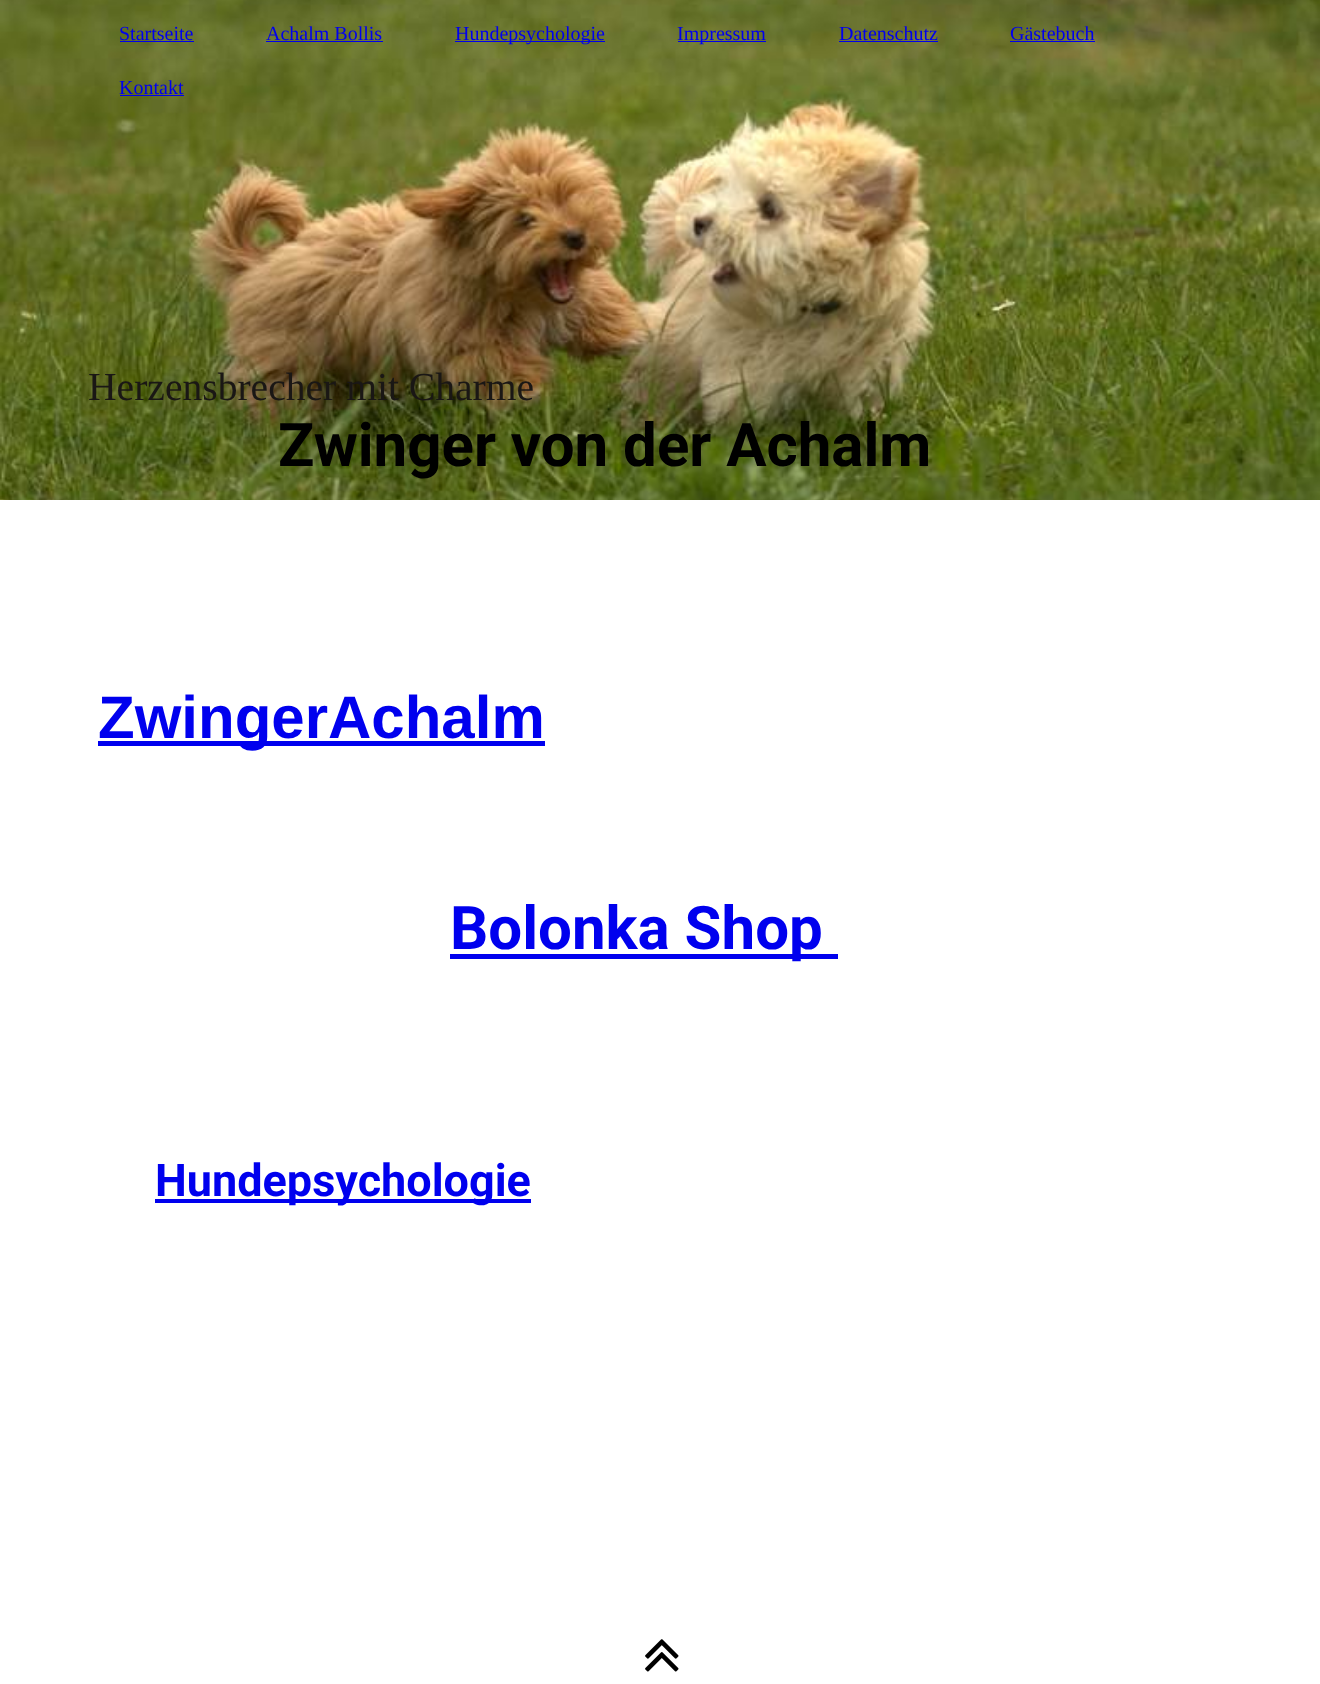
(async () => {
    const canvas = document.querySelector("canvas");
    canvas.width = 1320;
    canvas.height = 1684;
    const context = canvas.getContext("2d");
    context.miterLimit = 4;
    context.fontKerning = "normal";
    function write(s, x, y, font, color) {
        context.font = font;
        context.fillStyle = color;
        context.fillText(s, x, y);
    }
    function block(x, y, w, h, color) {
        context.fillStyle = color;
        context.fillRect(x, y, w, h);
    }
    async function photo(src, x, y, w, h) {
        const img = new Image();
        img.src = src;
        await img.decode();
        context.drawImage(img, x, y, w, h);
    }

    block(0, 0, 1320, 1684, "rgb(255, 255, 255)");
    await photo("media/1.png", 0, 0, 1320, 500);
    write("Startseite", 119, 40, "20px Liberation Serif", "rgb(0, 0, 238)");
    block(120, 41, 74, 1, "rgb(0, 0, 238)");
    write("Achalm Bollis", 266, 40, "20px Liberation Serif", "rgb(0, 0, 238)");
    block(266, 41, 117, 1, "rgb(0, 0, 238)");
    block(455, 41, 150, 1, "rgb(0, 0, 238)");
    write("Hundepsychologie", 455, 40, "20px Liberation Serif", "rgb(0, 0, 238)");
    block(678, 41, 88, 1, "rgb(0, 0, 238)");
    write("Impressum", 677, 40, "20px Liberation Serif", "rgb(0, 0, 238)");
    write("Datenschutz", 839, 40, "20px Liberation Serif", "rgb(0, 0, 238)");
    block(839, 41, 99, 1, "rgb(0, 0, 238)");
    write("Gästebuch", 1010, 40, "20px Liberation Serif", "rgb(0, 0, 238)");
    block(1010, 41, 85, 1, "rgb(0, 0, 238)");
    write("Kontakt", 119, 94, "20px Liberation Serif", "rgb(0, 0, 238)");
    block(120, 95, 64, 1, "rgb(0, 0, 238)");
    write("Herzensbrecher mit Charme", 88, 400, "39.6px Liberation Serif", "rgb(26, 23, 21)");
    write("Zwinger von der Achalm", 278, 466, "bold 60px Roboto", "rgb(0, 0, 0)");
    block(98, 741, 447, 5, "rgb(0, 0, 238)");
    write("ZwingerAchalm", 98, 738, "bold 60px Liberation Sans", "rgb(0, 0, 238)");
    block(450, 954, 388, 5, "rgb(0, 0, 238)");
    write("Bolonka Shop", 450, 949, "bold 60px Roboto", "rgb(0, 0, 238)");
    block(155, 1199, 376, 4, "rgb(0, 0, 238)");
    write("Hundepsychologie", 155, 1196, "bold 45px Roboto", "rgb(0, 0, 238)");
    await photo("media/2.png", 645, 1639, 34, 33);
})();
